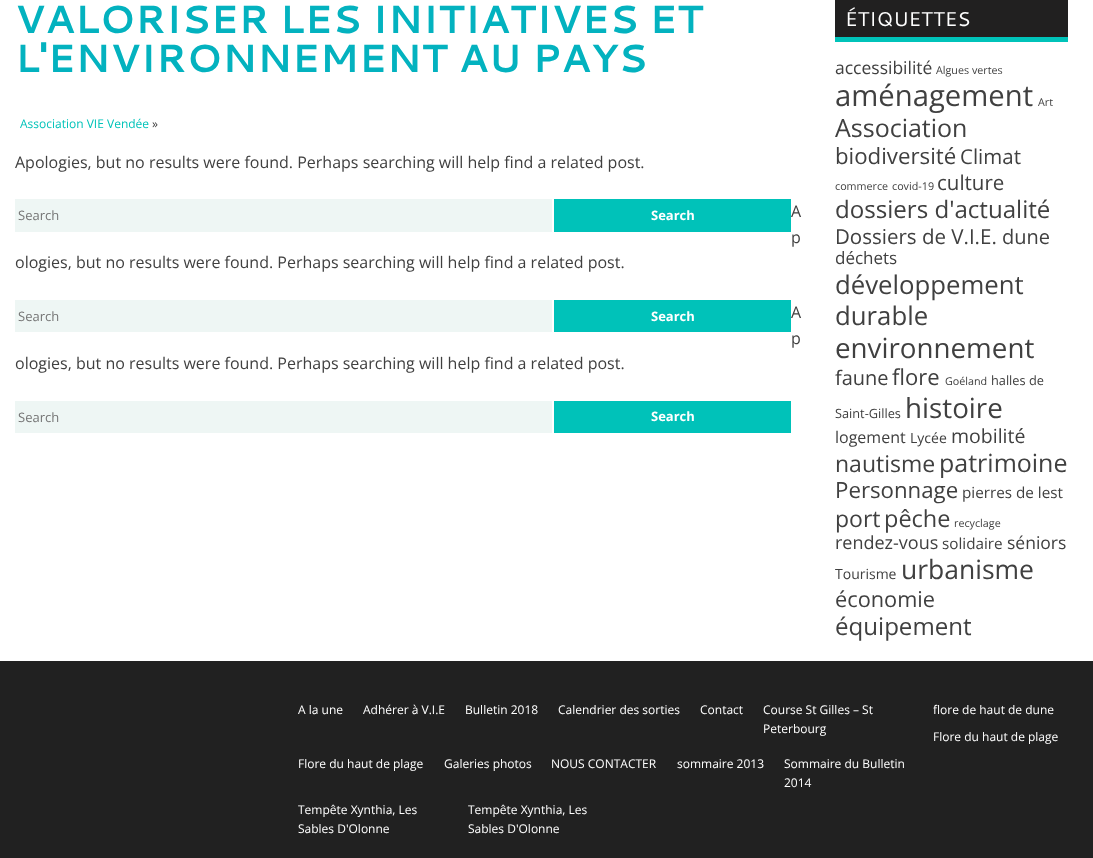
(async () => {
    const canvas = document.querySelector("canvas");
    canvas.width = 1093;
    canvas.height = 858;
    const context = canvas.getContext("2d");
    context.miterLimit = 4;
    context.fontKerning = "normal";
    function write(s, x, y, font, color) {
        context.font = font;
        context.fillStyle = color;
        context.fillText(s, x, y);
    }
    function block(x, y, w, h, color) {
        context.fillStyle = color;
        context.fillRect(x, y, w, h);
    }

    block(0, 0, 1093, 858, "rgb(255, 255, 255)");
    write("VALORISER LES INITIATIVES ET", 15, 33, "bold 39.25px Cantarell", "rgb(3, 178, 191)");
    write("L'ENVIRONNEMENT AU PAYS", 15, 72, "bold 39.25px Cantarell", "rgb(3, 178, 191)");
    write("Association VIE Vendée", 20, 128, "12px Open Sans", "rgb(0, 195, 185)");
    write("»", 152, 128, "12px Open Sans", "rgb(64, 64, 64)");
    write("Apologies, but no results were found. Perhaps searching will help find a related post.", 15, 168, "16px Open Sans", "rgb(64, 64, 64)");
    block(15, 199, 537, 33, "rgb(238, 246, 244)");
    write("Search", 18, 220, "13px Open Sans", "rgb(117, 117, 117)");
    write("A", 791, 217, "16px Open Sans", "rgb(64, 64, 64)");
    block(554, 199, 237, 33, "rgb(0, 194, 185)");
    write("Search", 651, 220, "bold 13px Open Sans", "rgb(255, 255, 255)");
    write("p", 791, 243, "16px Open Sans", "rgb(64, 64, 64)");
    write("ologies, but no results were found. Perhaps searching will help find a related post.", 15, 268, "16px Open Sans", "rgb(64, 64, 64)");
    block(15, 300, 537, 32, "rgb(238, 246, 244)");
    write("Search", 18, 321, "13px Open Sans", "rgb(117, 117, 117)");
    write("A", 791, 318, "16px Open Sans", "rgb(64, 64, 64)");
    block(554, 300, 237, 32, "rgb(0, 194, 185)");
    write("Search", 651, 321, "bold 13px Open Sans", "rgb(255, 255, 255)");
    write("p", 791, 344, "16px Open Sans", "rgb(64, 64, 64)");
    write("ologies, but no results were found. Perhaps searching will help find a related post.", 15, 369, "16px Open Sans", "rgb(64, 64, 64)");
    block(15, 401, 537, 32, "rgb(238, 246, 244)");
    write("Search", 18, 422, "13px Open Sans", "rgb(117, 117, 117)");
    block(554, 401, 237, 32, "rgb(0, 194, 185)");
    write("Search", 651, 421, "bold 13px Open Sans", "rgb(255, 255, 255)");
    block(835, 0, 233, 37, "rgb(33, 32, 32)");
    block(835, 37, 233, 5, "rgb(0, 195, 185)");
    write("ÉTIQUETTES", 845, 26, "20px Cantarell", "rgb(255, 255, 255)");
    write("accessibilité", 835, 74, "17.5px Open Sans", "rgb(64, 64, 64)");
    write("Algues vertes", 936, 74, "10.75px Open Sans", "rgb(64, 64, 64)");
    write("aménagement", 835, 106, "29.25px Open Sans", "rgb(64, 64, 64)");
    write("Art", 1038, 106, "10.75px Open Sans", "rgb(64, 64, 64)");
    write("Association", 835, 137, "25px Open Sans", "rgb(64, 64, 64)");
    write("biodiversité", 835, 164, "22.25px Open Sans", "rgb(64, 64, 64)");
    write("Climat", 960, 164, "20.5px Open Sans", "rgb(64, 64, 64)");
    write("commerce", 835, 190, "10.75px Open Sans", "rgb(64, 64, 64)");
    write("covid-19", 892, 190, "10.75px Open Sans", "rgb(64, 64, 64)");
    write("culture", 937, 190, "20.5px Open Sans", "rgb(64, 64, 64)");
    write("dossiers d'actualité", 835, 218, "24.1px Open Sans", "rgb(64, 64, 64)");
    write("Dossiers de V.I.E.", 835, 244, "20.5px Open Sans", "rgb(64, 64, 64)");
    write("dune", 1002, 244, "20px Open Sans", "rgb(64, 64, 64)");
    write("déchets", 835, 264, "17px Open Sans", "rgb(64, 64, 64)");
    write("développement", 835, 294, "25.75px Open Sans", "rgb(64, 64, 64)");
    write("durable", 835, 325, "25.75px Open Sans", "rgb(64, 64, 64)");
    write("environnement", 835, 358, "27.75px Open Sans", "rgb(64, 64, 64)");
    write("faune", 835, 385, "20px Open Sans", "rgb(64, 64, 64)");
    write("flore", 892, 385, "22px Open Sans", "rgb(64, 64, 64)");
    write("Goéland", 945, 385, "10.75px Open Sans", "rgb(64, 64, 64)");
    write("halles de", 991, 385, "12.75px Open Sans", "rgb(64, 64, 64)");
    write("Saint-Gilles", 835, 418, "12.75px Open Sans", "rgb(64, 64, 64)");
    write("histoire", 905, 418, "27.75px Open Sans", "rgb(64, 64, 64)");
    write("logement", 835, 443, "16px Open Sans", "rgb(64, 64, 64)");
    write("Lycée", 910, 443, "14px Open Sans", "rgb(64, 64, 64)");
    write("mobilité", 951, 443, "19.5px Open Sans", "rgb(64, 64, 64)");
    write("nautisme", 835, 472, "23px Open Sans", "rgb(64, 64, 64)");
    write("patrimoine", 939, 472, "25px Open Sans", "rgb(64, 64, 64)");
    write("Personnage", 835, 498, "22.25px Open Sans", "rgb(64, 64, 64)");
    write("pierres de lest", 962, 498, "15.25px Open Sans", "rgb(64, 64, 64)");
    write("port", 835, 527, "23px Open Sans", "rgb(64, 64, 64)");
    write("pêche", 884, 527, "23.5px Open Sans", "rgb(64, 64, 64)");
    write("recyclage", 954, 527, "10.75px Open Sans", "rgb(64, 64, 64)");
    write("rendez-vous", 835, 549, "18px Open Sans", "rgb(64, 64, 64)");
    write("solidaire", 942, 549, "15.25px Open Sans", "rgb(64, 64, 64)");
    write("séniors", 1007, 549, "17.5px Open Sans", "rgb(64, 64, 64)");
    write("Tourisme", 835, 579, "14px Open Sans", "rgb(64, 64, 64)");
    write("urbanisme", 901, 579, "26.5px Open Sans", "rgb(64, 64, 64)");
    write("économie", 835, 607, "21.75px Open Sans", "rgb(64, 64, 64)");
    write("équipement", 835, 635, "24.1px Open Sans", "rgb(64, 64, 64)");
    block(0, 661, 1093, 197, "rgb(33, 33, 33)");
    write("A la une", 298, 714, "12px Open Sans", "rgb(255, 255, 255)");
    write("Adhérer à V.I.E", 363, 714, "12px Open Sans", "rgb(255, 255, 255)");
    write("Bulletin 2018", 465, 714, "12px Open Sans", "rgb(255, 255, 255)");
    write("Calendrier des sorties", 558, 714, "12px Open Sans", "rgb(255, 255, 255)");
    write("Contact", 700, 714, "12px Open Sans", "rgb(255, 255, 255)");
    write("Course St Gilles – St", 763, 714, "12px Open Sans", "rgb(255, 255, 255)");
    write("Peterbourg", 763, 733, "12px Open Sans", "rgb(255, 255, 255)");
    write("flore de haut de dune", 933, 714, "12px Open Sans", "rgb(255, 255, 255)");
    write("Flore du haut de plage", 933, 741, "12px Open Sans", "rgb(255, 255, 255)");
    write("Flore du haut de plage", 298, 768, "12px Open Sans", "rgb(255, 255, 255)");
    write("Galeries photos", 444, 768, "12px Open Sans", "rgb(255, 255, 255)");
    write("NOUS CONTACTER", 551, 768, "12px Open Sans", "rgb(255, 255, 255)");
    write("sommaire 2013", 677, 768, "12px Open Sans", "rgb(255, 255, 255)");
    write("Sommaire du Bulletin", 784, 768, "12px Open Sans", "rgb(255, 255, 255)");
    write("2014", 784, 787, "12px Open Sans", "rgb(255, 255, 255)");
    write("Tempête Xynthia, Les", 298, 814, "12px Open Sans", "rgb(255, 255, 255)");
    write("Sables D'Olonne", 298, 833, "12px Open Sans", "rgb(255, 255, 255)");
    write("Tempête Xynthia, Les", 468, 814, "12px Open Sans", "rgb(255, 255, 255)");
    write("Sables D'Olonne", 468, 833, "12px Open Sans", "rgb(255, 255, 255)");
})();
